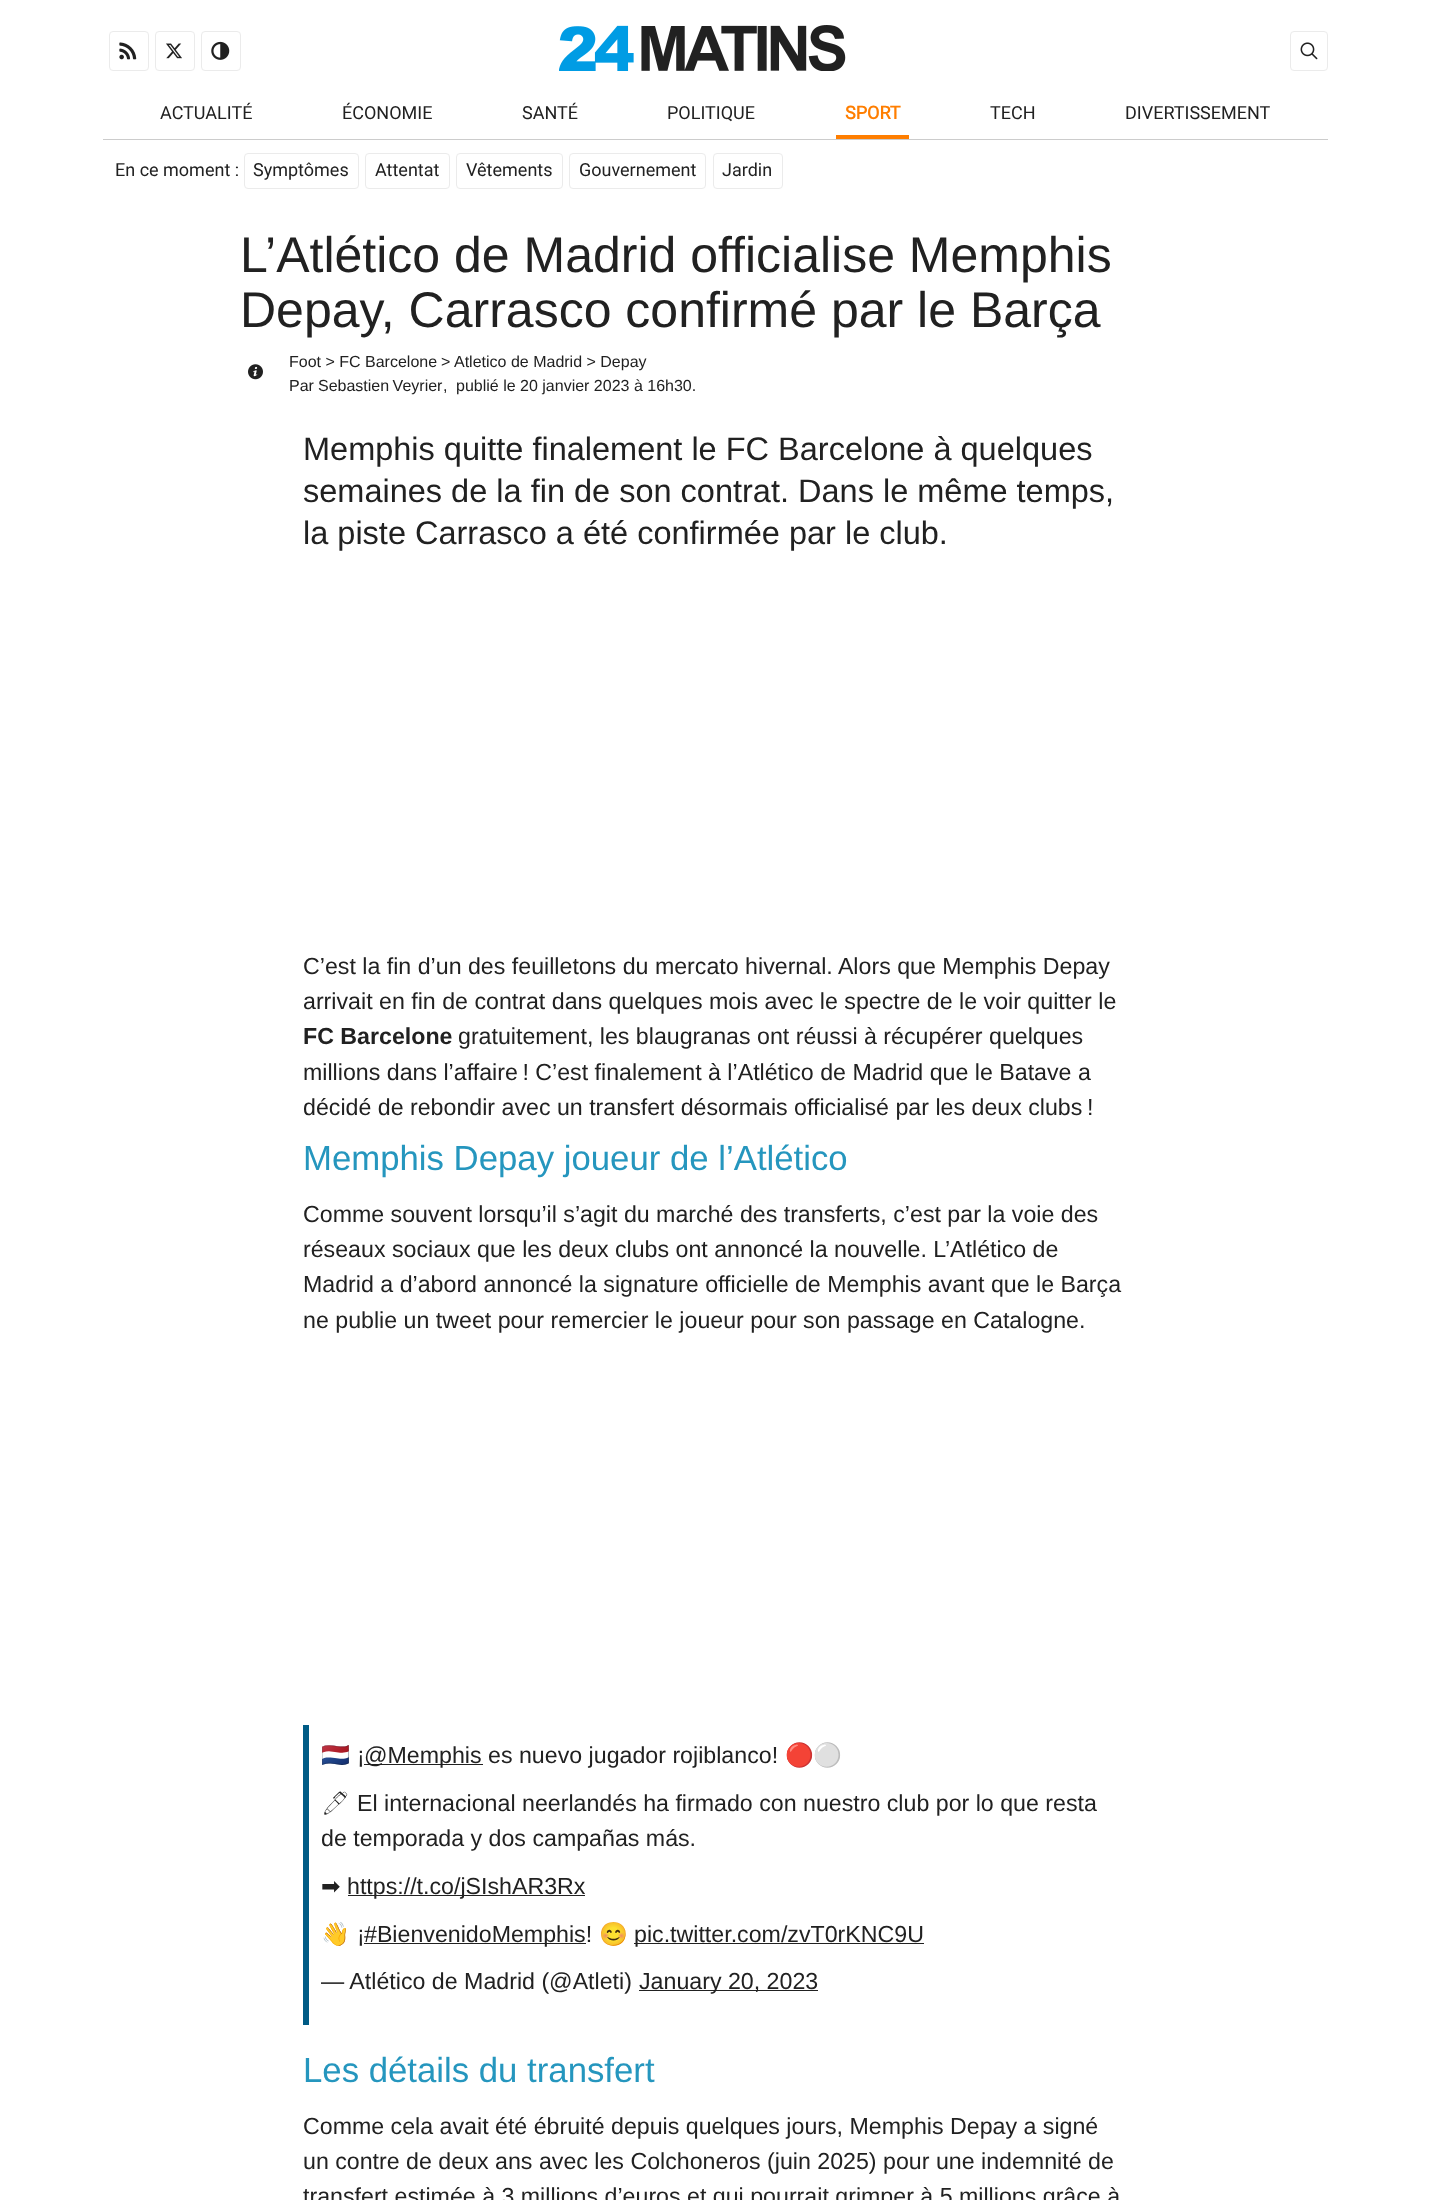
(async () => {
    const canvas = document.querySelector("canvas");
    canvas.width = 1430;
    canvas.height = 2200;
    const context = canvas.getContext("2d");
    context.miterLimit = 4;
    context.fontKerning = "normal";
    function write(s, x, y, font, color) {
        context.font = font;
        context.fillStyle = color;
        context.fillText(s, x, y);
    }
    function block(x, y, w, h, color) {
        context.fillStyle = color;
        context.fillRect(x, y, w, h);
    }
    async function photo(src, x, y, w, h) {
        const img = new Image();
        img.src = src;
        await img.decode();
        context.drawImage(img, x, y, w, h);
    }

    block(0, 0, 1430, 2200, "rgb(255, 255, 255)");
    context.beginPath();
    context.roundRect(109.5, 31.5, 39, 39, 3.5);
    context.strokeStyle = "rgb(235, 235, 235)";
    context.stroke();
    await photo("media/1.png", 119, 42, 18, 18);
    context.beginPath();
    context.roundRect(155.5, 31.5, 39, 39, 3.5);
    context.stroke();
    await photo("media/2.png", 166, 43, 16, 16);
    context.beginPath();
    context.roundRect(201.5, 31.5, 39, 39, 3.5);
    context.stroke();
    await photo("media/3.png", 211, 41, 19, 19);
    await photo("media/4.png", 559, 25, 287, 46);
    context.beginPath();
    context.roundRect(1290.5, 31.5, 37, 39, 3.5);
    context.stroke();
    await photo("media/5.png", 1300, 42, 18, 18);
    block(103, 139, 1225, 1, "rgb(204, 204, 204)");
    write("ACTUALITÉ", 160, 119, "18px Roboto", "rgb(33, 33, 33)");
    write("ÉCONOMIE", 342, 119, "18px Roboto", "rgb(33, 33, 33)");
    write("SANTÉ", 522, 119, "18px Roboto", "rgb(33, 33, 33)");
    write("POLITIQUE", 667, 119, "18px Roboto", "rgb(33, 33, 33)");
    block(836, 135, 73, 4, "rgb(255, 126, 0)");
    write("SPORT", 845, 119, "bold 18px Roboto", "rgb(255, 126, 0)");
    write("TECH", 990, 119, "18px Roboto", "rgb(33, 33, 33)");
    write("DIVERTISSEMENT", 1125, 119, "18px Roboto", "rgb(33, 33, 33)");
    write("En ce moment :", 115, 176, "18px Roboto", "rgb(33, 33, 33)");
    context.beginPath();
    context.roundRect(244.5, 153.5, 114, 35, 3.5);
    context.stroke();
    write("Symptômes", 253, 176, "18px Roboto", "rgb(33, 33, 33)");
    context.beginPath();
    context.roundRect(365.5, 153.5, 84, 35, 3.5);
    context.stroke();
    write("Attentat", 375, 176, "18px Roboto", "rgb(33, 33, 33)");
    context.beginPath();
    context.roundRect(456.5, 153.5, 106, 35, 3.5);
    context.stroke();
    write("Vêtements", 466, 176, "18px Roboto", "rgb(33, 33, 33)");
    context.beginPath();
    context.roundRect(569.5, 153.5, 136, 35, 3.5);
    context.stroke();
    write("Gouvernement", 579, 176, "18px Roboto", "rgb(33, 33, 33)");
    context.beginPath();
    context.roundRect(713.5, 153.5, 69, 35, 3.5);
    context.stroke();
    write("Jardin", 722, 176, "18px Roboto", "rgb(33, 33, 33)");
    write("L’Atlético de Madrid officialise Memphis", 240, 272, "50px Liberation Sans", "rgb(33, 33, 33)");
    write("Depay, Carrasco confirmé par le Barça", 240, 327, "50px Liberation Sans", "rgb(33, 33, 33)");
    await photo("media/6.png", 248, 364, 15, 16);
    write("Foot > FC Barcelone", 289, 367, "16px Liberation Sans", "rgb(33, 33, 33)");
    write(">", 441, 367, "16px Liberation Sans", "rgb(33, 33, 33)");
    write("Atletico de Madrid > Depay", 454, 367, "16px Liberation Sans", "rgb(33, 33, 33)");
    write("Par", 289, 391, "16px Liberation Sans", "rgb(33, 33, 33)");
    context.wordSpacing = "-1px";
    write("Sebastien Veyrier", 318, 391, "16px Liberation Sans", "rgb(33, 33, 33)");
    context.wordSpacing = "0px";
    write(",", 443, 391, "16px Liberation Sans", "rgb(33, 33, 33)");
    write("publié le 20 janvier 2023 à 16h30.", 456, 391, "16px Liberation Sans", "rgb(33, 33, 33)");
    write("Memphis quitte finalement le FC Barcelone à quelques", 303, 460, "32.5px Liberation Sans", "rgb(33, 33, 33)");
    write("semaines de la fin de son contrat. Dans le même temps,", 303, 502, "32.5px Liberation Sans", "rgb(33, 33, 33)");
    write("la piste Carrasco a été confirmée par le club.", 303, 544, "32.5px Liberation Sans", "rgb(33, 33, 33)");
    write("C’est la fin d’un des feuilletons du mercato hivernal. Alors que Memphis Depay", 303, 974, "23.2px Liberation Sans", "rgb(33, 33, 33)");
    write("arrivait en fin de contrat dans quelques mois avec le spectre de le voir quitter le", 303, 1009, "23.2px Liberation Sans", "rgb(33, 33, 33)");
    write("FC Barcelone", 303, 1044, "bold 23.2px Liberation Sans", "rgb(33, 33, 33)");
    write("gratuitement, les blaugranas ont réussi à récupérer quelques", 458, 1044, "23.2px Liberation Sans", "rgb(33, 33, 33)");
    write("millions dans l’affaire ! C’est finalement à l’Atlético de Madrid que le Batave a", 303, 1080, "23.2px Liberation Sans", "rgb(33, 33, 33)");
    write("décidé de rebondir avec un transfert désormais officialisé par les deux clubs !", 303, 1115, "23.2px Liberation Sans", "rgb(33, 33, 33)");
    write("Memphis Depay joueur de l’Atlético", 303, 1170, "34.75px Liberation Sans", "rgb(37, 150, 190)");
    write("Comme souvent lorsqu’il s’agit du marché des transferts, c’est par la voie des", 303, 1222, "23.2px Liberation Sans", "rgb(33, 33, 33)");
    write("réseaux sociaux que les deux clubs ont annoncé la nouvelle. L’Atlético de", 303, 1257, "23.2px Liberation Sans", "rgb(33, 33, 33)");
    write("Madrid a d’abord annoncé la signature officielle de Memphis avant que le Barça", 303, 1292, "23.2px Liberation Sans", "rgb(33, 33, 33)");
    write("ne publie un tweet pour remercier le joueur pour son passage en Catalogne.", 303, 1328, "23.2px Liberation Sans", "rgb(33, 33, 33)");
    block(303, 1725, 6, 300, "rgb(0, 91, 133)");
    write("🇳🇱", 321, 1763, "23.2px Noto Color Emoji", "rgb(33, 33, 33)");
    write("¡", 357, 1763, "23.2px Liberation Sans", "rgb(33, 33, 33)");
    block(364, 1764, 119, 1, "rgb(33, 33, 33)");
    write("@Memphis es nuevo jugador rojiblanco!", 364, 1763, "23.2px Liberation Sans", "rgb(33, 33, 33)");
    write("🔴⚪", 785, 1763, "23.2px Noto Color Emoji", "rgb(33, 33, 33)");
    write("🖊", 321, 1811, "300 23.2px Noto Emoji", "rgb(33, 33, 33)");
    write("El internacional neerlandés ha firmado con nuestro club por lo que resta", 357, 1811, "23.2px Liberation Sans", "rgb(33, 33, 33)");
    write("de temporada y dos campañas más.", 321, 1846, "23.2px Liberation Sans", "rgb(33, 33, 33)");
    write("➡", 321, 1894, "23.2px DejaVu Sans", "rgb(33, 33, 33)");
    block(348, 1895, 237, 1, "rgb(33, 33, 33)");
    write("https://t.co/jSIshAR3Rx", 347, 1894, "23.2px Liberation Sans", "rgb(33, 33, 33)");
    write("👋", 321, 1942, "23.2px Noto Color Emoji", "rgb(33, 33, 33)");
    write("¡", 357, 1942, "23.2px Liberation Sans", "rgb(33, 33, 33)");
    block(364, 1943, 222, 1, "rgb(33, 33, 33)");
    write("#BienvenidoMemphis!", 364, 1942, "23.2px Liberation Sans", "rgb(33, 33, 33)");
    write("😊", 599, 1942, "23.2px Noto Color Emoji", "rgb(33, 33, 33)");
    block(634, 1943, 290, 1, "rgb(33, 33, 33)");
    write("pic.twitter.com/zvT0rKNC9U", 634, 1942, "23.2px Liberation Sans", "rgb(33, 33, 33)");
    write("— Atlético de Madrid (@Atleti)", 321, 1989, "23.2px Liberation Sans", "rgb(33, 33, 33)");
    block(639, 1990, 179, 1, "rgb(33, 33, 33)");
    write("January 20, 2023", 639, 1989, "23.2px Liberation Sans", "rgb(33, 33, 33)");
    write("Les détails du transfert", 303, 2082, "34.75px Liberation Sans", "rgb(37, 150, 190)");
    write("Comme cela avait été ébruité depuis quelques jours, Memphis Depay a signé", 303, 2134, "23.2px Liberation Sans", "rgb(33, 33, 33)");
    write("un contre de deux ans avec les Colchoneros (juin 2025) pour une indemnité de", 303, 2169, "23.2px Liberation Sans", "rgb(33, 33, 33)");
    write("transfert estimée à 3 millions d’euros et qui pourrait grimper à 5 millions grâce à", 303, 2204, "23.2px Liberation Sans", "rgb(33, 33, 33)");
})();
